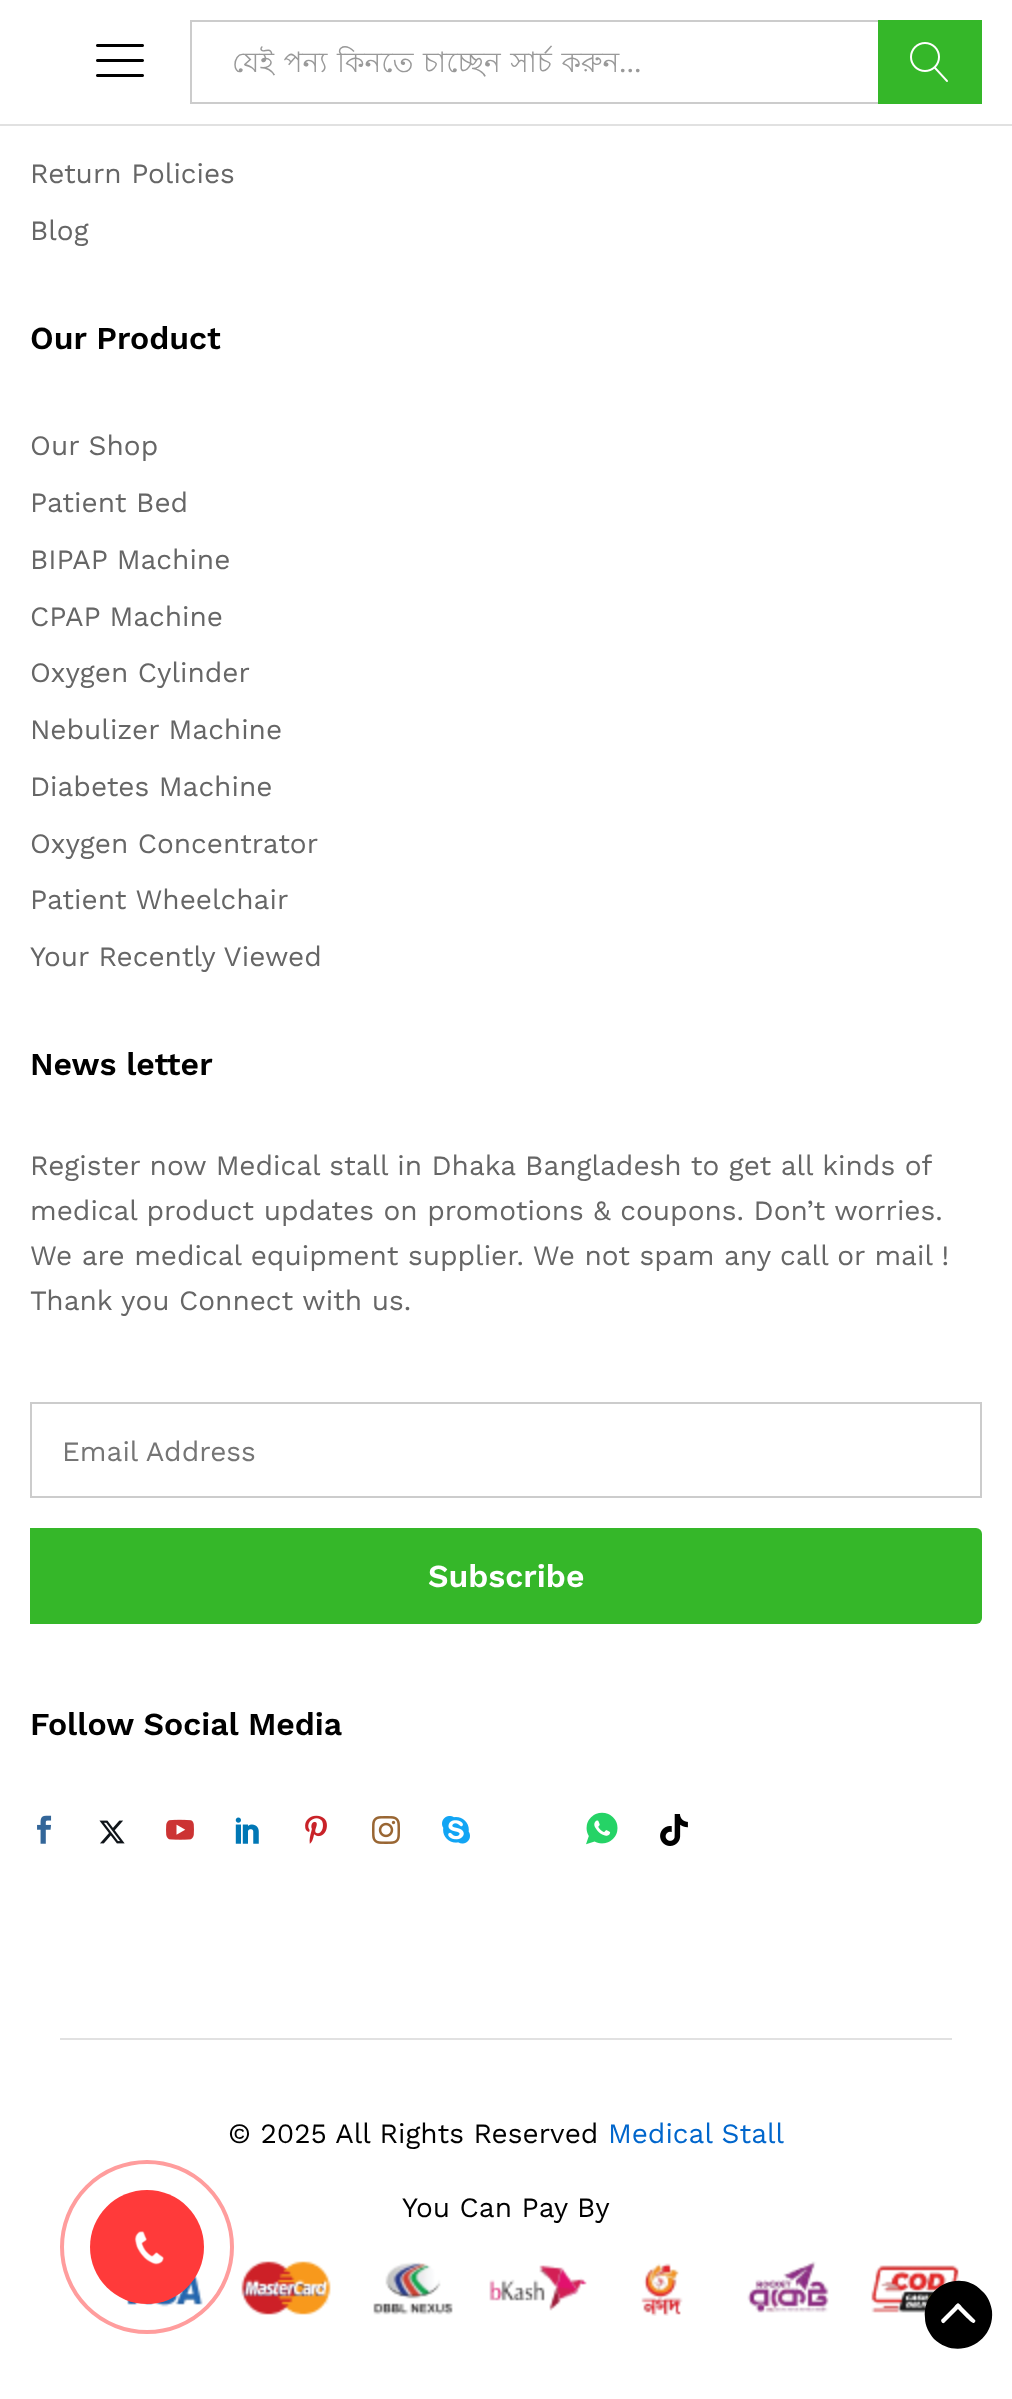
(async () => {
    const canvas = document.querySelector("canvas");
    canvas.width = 1012;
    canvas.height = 2399;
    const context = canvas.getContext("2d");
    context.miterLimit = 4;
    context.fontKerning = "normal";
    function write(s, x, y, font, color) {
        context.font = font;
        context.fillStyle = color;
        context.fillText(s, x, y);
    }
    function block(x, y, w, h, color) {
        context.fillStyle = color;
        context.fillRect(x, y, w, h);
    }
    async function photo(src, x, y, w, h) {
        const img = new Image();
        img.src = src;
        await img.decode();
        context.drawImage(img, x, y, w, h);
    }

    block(0, 0, 1012, 2399, "rgb(255, 255, 255)");
    block(0, 124, 1012, 2, "rgb(225, 225, 225)");
    await photo("media/1.png", 96, 44, 48, 33);
    block(190, 20, 688, 2, "rgb(204, 204, 204)");
    block(190, 102, 688, 2, "rgb(204, 204, 204)");
    block(190, 20, 2, 84, "rgb(204, 204, 204)");
    context.wordSpacing = "1.75px";
    write("যেই পন্য কিনতে চাচ্ছেন সার্চ করুন", 232, 72, "28px Lohit Bengali", "rgb(153, 153, 153)");
    context.wordSpacing = "0px";
    write("...", 619, 72, "28px Work Sans", "rgb(153, 153, 153)");
    block(878, 20, 104, 84, "rgb(53, 183, 41)");
    await photo("media/2.png", 910, 42, 38, 40);
    write("Return Policies", 30, 183, "28px Work Sans", "rgb(102, 102, 102)");
    write("Blog", 30, 240, "28px Work Sans", "rgb(102, 102, 102)");
    write("Our Product", 30, 349, "600 32px Work Sans", "rgb(0, 0, 0)");
    write("Our Shop", 30, 455, "28px Work Sans", "rgb(102, 102, 102)");
    write("Patient Bed", 30, 512, "28px Work Sans", "rgb(102, 102, 102)");
    write("BIPAP Machine", 30, 569, "28px Work Sans", "rgb(102, 102, 102)");
    write("CPAP Machine", 30, 626, "28px Work Sans", "rgb(102, 102, 102)");
    write("Oxygen Cylinder", 30, 682, "28px Work Sans", "rgb(102, 102, 102)");
    write("Nebulizer Machine", 30, 739, "28px Work Sans", "rgb(102, 102, 102)");
    write("Diabetes Machine", 30, 796, "28px Work Sans", "rgb(102, 102, 102)");
    write("Oxygen Concentrator", 30, 853, "28px Work Sans", "rgb(102, 102, 102)");
    write("Patient Wheelchair", 30, 909, "28px Work Sans", "rgb(102, 102, 102)");
    write("Your Recently Viewed", 30, 966, "28px Work Sans", "rgb(102, 102, 102)");
    write("News letter", 30, 1075, "600 32px Work Sans", "rgb(0, 0, 0)");
    write("Register now Medical stall in Dhaka Bangladesh to get all kinds of", 30, 1175, "28px Work Sans", "rgb(102, 102, 102)");
    write("medical product updates on promotions & coupons. Don’t worries.", 30, 1220, "28px Work Sans", "rgb(102, 102, 102)");
    write("We are medical equipment supplier. We not spam any call or mail !", 30, 1265, "28px Work Sans", "rgb(102, 102, 102)");
    write("Thank you Connect with us.", 30, 1310, "28px Work Sans", "rgb(102, 102, 102)");
    context.strokeStyle = "rgb(204, 204, 204)";
    context.lineWidth = 2;
    context.strokeRect(31, 1403, 950, 94);
    write("Email Address", 62, 1461, "28px Work Sans", "rgb(117, 117, 117)");
    context.fillStyle = "rgb(53, 183, 41)";
    context.beginPath();
    context.roundRect(30, 1528, 952, 96, [0, 6, 6, 0]);
    context.fill();
    write("Subscribe", 428, 1587, "600 32px Work Sans", "rgb(255, 255, 255)");
    write("Follow Social Media", 30, 1735, "600 32px Work Sans", "rgb(0, 0, 0)");
    await photo("media/3.png", 37, 1815, 15, 29);
    await photo("media/4.png", 99, 1820, 26, 24);
    await photo("media/5.png", 166, 1819, 28, 21);
    await photo("media/6.png", 235, 1817, 24, 27);
    await photo("media/7.png", 305, 1815, 22, 29);
    await photo("media/8.png", 372, 1816, 28, 28);
    await photo("media/9.png", 442, 1816, 28, 28);
    await photo("media/10.png", 586, 1812, 32, 33);
    await photo("media/11.png", 660, 1814, 28, 32);
    block(60, 2038, 892, 2, "rgb(225, 225, 225)");
    write("© 2025 All Rights Reserved", 228, 2143, "28px Work Sans", "rgb(0, 0, 0)");
    write("Medical Stall", 608, 2143, "28px Work Sans", "rgb(0, 102, 204)");
    write("You Can Pay By", 402, 2217, "28px Work Sans", "rgb(0, 0, 0)");
    await photo("media/12.png", 125, 2275, 78, 32);
    await photo("media/13.png", 241, 2261, 90, 54);
    await photo("media/14.png", 373, 2262, 80, 53);
    await photo("media/15.png", 489, 2265, 98, 46);
    await photo("media/16.png", 641, 2263, 42, 53);
    await photo("media/17.png", 747, 2261, 82, 52);
    await photo("media/18.png", 871, 2265, 88, 48);
    context.beginPath();
    context.arc(147, 2247, 85, 0, Math.PI * 2);
    context.strokeStyle = "rgb(255, 157, 157)";
    context.lineWidth = 4;
    context.stroke();
    context.fillStyle = "rgb(255, 58, 58)";
    context.beginPath();
    context.arc(147, 2247, 57, 0, Math.PI * 2);
    context.fill();
    await photo("media/19.png", 134, 2231, 30, 34);
    context.fillStyle = "rgb(0, 0, 0)";
    context.beginPath();
    context.moveTo(934, 2339);
    context.bezierCurveTo(957, 2361, 995, 2343, 992, 2311);
    context.bezierCurveTo(991, 2304, 988, 2296, 982, 2291);
    context.bezierCurveTo(960, 2268, 922, 2287, 925, 2318);
    context.bezierCurveTo(925, 2326, 929, 2333, 934, 2339);
    context.closePath();
    context.moveTo(942, 2319);
    context.lineTo(954, 2307);
    context.bezierCurveTo(958, 2302, 958, 2302, 962, 2307);
    context.lineTo(975, 2320);
    context.bezierCurveTo(976, 2321, 975, 2322, 974, 2323);
    context.bezierCurveTo(972, 2324, 960, 2311, 958, 2309);
    context.lineTo(944, 2323);
    context.bezierCurveTo(942, 2324, 940, 2320, 942, 2319);
    context.closePath();
    context.fill();
})();
